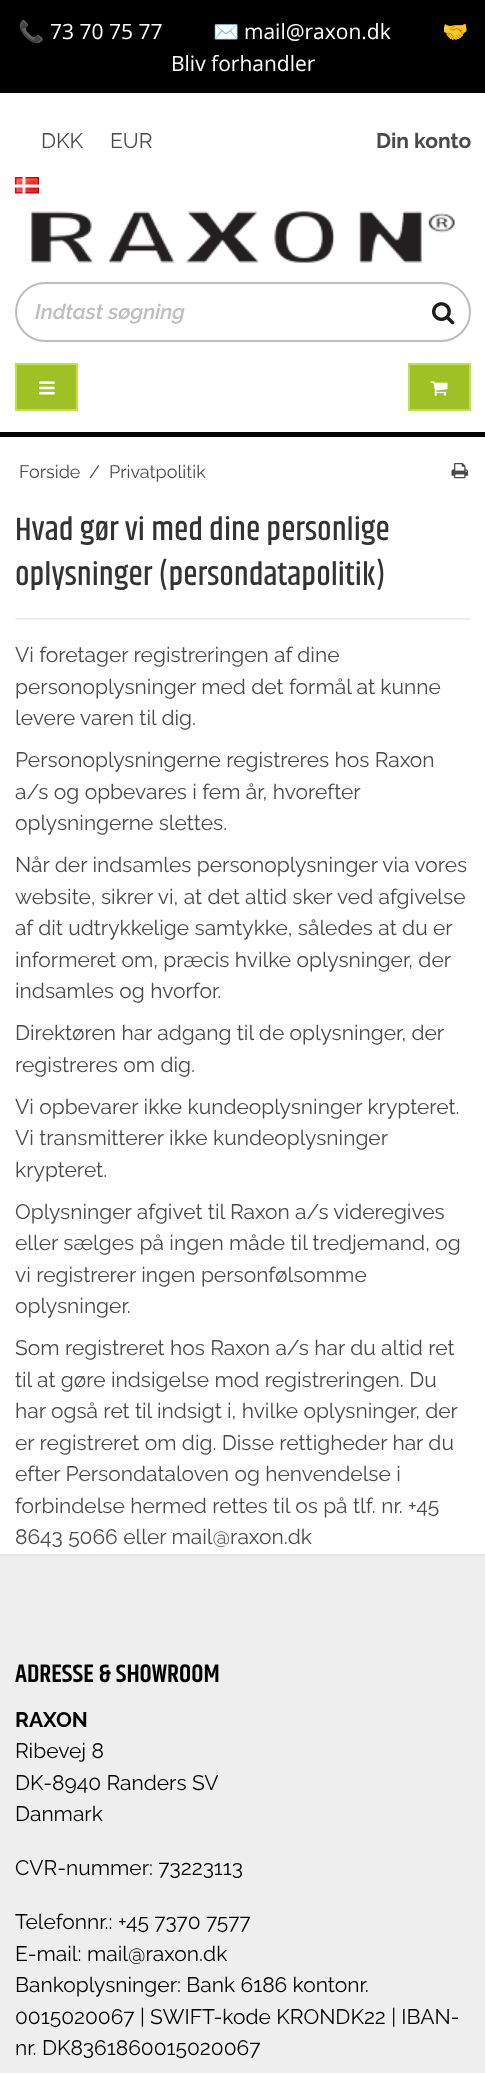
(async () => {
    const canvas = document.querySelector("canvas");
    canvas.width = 485;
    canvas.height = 2073;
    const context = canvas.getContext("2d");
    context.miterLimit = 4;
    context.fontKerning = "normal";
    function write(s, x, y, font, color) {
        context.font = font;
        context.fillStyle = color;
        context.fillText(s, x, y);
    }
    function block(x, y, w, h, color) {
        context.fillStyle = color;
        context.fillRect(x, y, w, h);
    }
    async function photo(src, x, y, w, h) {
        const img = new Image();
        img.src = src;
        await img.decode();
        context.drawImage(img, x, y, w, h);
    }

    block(0, 0, 485, 2073, "rgb(255, 255, 255)");
    block(0, 0, 485, 93, "rgb(0, 0, 0)");
    write("📞", 18, 39, "21px Noto Color Emoji", "rgb(255, 255, 255)");
    write("73 70 75 77", 50, 39, "21px Open Sans", "rgb(255, 255, 255)");
    write("✉️", 213, 39, "21px Noto Color Emoji", "rgb(255, 255, 255)");
    write("mail@raxon.dk", 244, 39, "21px Open Sans", "rgb(255, 255, 255)");
    write("🤝", 442, 39, "21px Noto Color Emoji", "rgb(255, 255, 255)");
    write("Bliv forhandler", 171, 71, "21px Open Sans", "rgb(255, 255, 255)");
    write("DKK", 41, 148, "21px Raleway", "rgb(74, 74, 74)");
    write("EUR", 110, 148, "21px Raleway", "rgb(74, 74, 74)");
    await photo("media/1.png", 15, 177, 24, 17);
    write("Din konto", 376, 148, "bold 21px Raleway", "rgb(74, 74, 74)");
    await photo("media/2.png", 31, 211, 424, 52);
    context.beginPath();
    context.roundRect(16, 283, 454, 58, 29);
    context.strokeStyle = "rgb(191, 190, 190)";
    context.lineWidth = 2;
    context.stroke();
    write("Indtast søgning", 35, 319, "italic 100 21px Raleway", "rgb(191, 190, 190)");
    await photo("media/3.png", 432, 302, 23, 23);
    block(0, 432, 485, 5, "rgb(0, 0, 0)");
    context.fillStyle = "rgb(160, 193, 37)";
    context.beginPath();
    context.rect(16, 364, 61, 46);
    context.fill();
    context.strokeStyle = "rgb(193, 222, 84)";
    context.stroke();
    await photo("media/4.png", 39, 381, 16, 14);
    context.beginPath();
    context.rect(409, 364, 61, 46);
    context.fill();
    context.stroke();
    await photo("media/5.png", 430, 381, 18, 15);
    write("Forside", 19, 478, "18px Raleway", "rgb(74, 74, 74)");
    write("/", 89, 478, "18px Raleway", "rgb(74, 74, 74)");
    write("Privatpolitik", 109, 478, "18px Raleway", "rgb(74, 74, 74)");
    await photo("media/6.png", 451, 463, 18, 16);
    block(15, 618, 456, 2, "rgb(238, 238, 238)");
    write("Hvad gør vi med dine personlige", 15, 540, "500 32.75px Khand", "rgb(51, 51, 51)");
    write("oplysninger (persondatapolitik)", 15, 585, "500 32.75px Khand", "rgb(51, 51, 51)");
    write("Vi foretager registreringen af dine", 15, 662, "21px Raleway", "rgb(74, 74, 74)");
    write("personoplysninger med det formål at kunne", 15, 694, "21px Raleway", "rgb(74, 74, 74)");
    write("levere varen til dig.", 15, 725, "21px Raleway", "rgb(74, 74, 74)");
    write("Personoplysningerne registreres hos Raxon", 15, 767, "21px Raleway", "rgb(74, 74, 74)");
    write("a/s og opbevares i fem år, hvorefter", 15, 799, "21px Raleway", "rgb(74, 74, 74)");
    write("oplysningerne slettes.", 15, 830, "21px Raleway", "rgb(74, 74, 74)");
    write("Når der indsamles personoplysninger via vores", 15, 872, "21px Raleway", "rgb(74, 74, 74)");
    write("website, sikrer vi, at det altid sker ved afgivelse", 15, 904, "21px Raleway", "rgb(74, 74, 74)");
    write("af dit udtrykkelige samtykke, således at du er", 15, 935, "21px Raleway", "rgb(74, 74, 74)");
    write("informeret om, præcis hvilke oplysninger, der", 15, 967, "21px Raleway", "rgb(74, 74, 74)");
    write("indsamles og hvorfor.", 15, 998, "21px Raleway", "rgb(74, 74, 74)");
    write("Direktøren har adgang til de oplysninger, der", 15, 1040, "21px Raleway", "rgb(74, 74, 74)");
    write("registreres om dig.", 15, 1072, "21px Raleway", "rgb(74, 74, 74)");
    write("Vi opbevarer ikke kundeoplysninger krypteret.", 15, 1114, "21px Raleway", "rgb(74, 74, 74)");
    write("Vi transmitterer ikke kundeoplysninger", 15, 1145, "21px Raleway", "rgb(74, 74, 74)");
    write("krypteret.", 15, 1177, "21px Raleway", "rgb(74, 74, 74)");
    write("Oplysninger afgivet til Raxon a/s videregives", 15, 1219, "21px Raleway", "rgb(74, 74, 74)");
    write("eller sælges på ingen måde til tredjemand, og", 15, 1250, "21px Raleway", "rgb(74, 74, 74)");
    write("vi registrerer ingen personfølsomme", 15, 1282, "21px Raleway", "rgb(74, 74, 74)");
    write("oplysninger.", 15, 1313, "21px Raleway", "rgb(74, 74, 74)");
    write("Som registreret hos Raxon a/s har du altid ret", 15, 1355, "21px Raleway", "rgb(74, 74, 74)");
    write("til at gøre indsigelse mod registreringen. Du", 15, 1387, "21px Raleway", "rgb(74, 74, 74)");
    write("har også ret til indsigt i, hvilke oplysninger, der", 15, 1418, "21px Raleway", "rgb(74, 74, 74)");
    write("er registreret om dig. Disse rettigheder har du", 15, 1450, "21px Raleway", "rgb(74, 74, 74)");
    write("efter Persondataloven og henvendelse i", 15, 1481, "21px Raleway", "rgb(74, 74, 74)");
    write("forbindelse hermed rettes til os på tlf. nr. +45", 15, 1513, "21px Raleway", "rgb(74, 74, 74)");
    write("8643 5066 eller mail@raxon.dk", 15, 1544, "21px Raleway", "rgb(74, 74, 74)");
    block(0, 1556, 485, 517, "rgb(238, 238, 238)");
    block(0, 1554, 485, 2, "rgb(230, 230, 230)");
    write("ADRESSE & SHOWROOM", 15, 1682, "600 25.5px Khand", "rgb(0, 0, 0)");
    write("RAXON", 15, 1727, "bold 21px Raleway", "rgb(0, 0, 0)");
    write("Ribevej 8", 15, 1758, "21px Raleway", "rgb(0, 0, 0)");
    write("DK-8940 Randers SV", 15, 1790, "21px Raleway", "rgb(0, 0, 0)");
    write("Danmark", 15, 1821, "21px Raleway", "rgb(0, 0, 0)");
    write("CVR-nummer: 73223113", 15, 1875, "21px Raleway", "rgb(0, 0, 0)");
    write("Telefonnr.: +45 7370 7577", 15, 1929, "21px Raleway", "rgb(0, 0, 0)");
    write("E-mail: mail@raxon.dk", 15, 1961, "21px Raleway", "rgb(0, 0, 0)");
    write("Bankoplysninger: Bank 6186 kontonr.", 15, 1992, "21px Raleway", "rgb(0, 0, 0)");
    write("0015020067 | SWIFT-kode KRONDK22 | IBAN-", 15, 2024, "21px Raleway", "rgb(0, 0, 0)");
    write("nr. DK8361860015020067", 15, 2055, "21px Raleway", "rgb(0, 0, 0)");
})();
